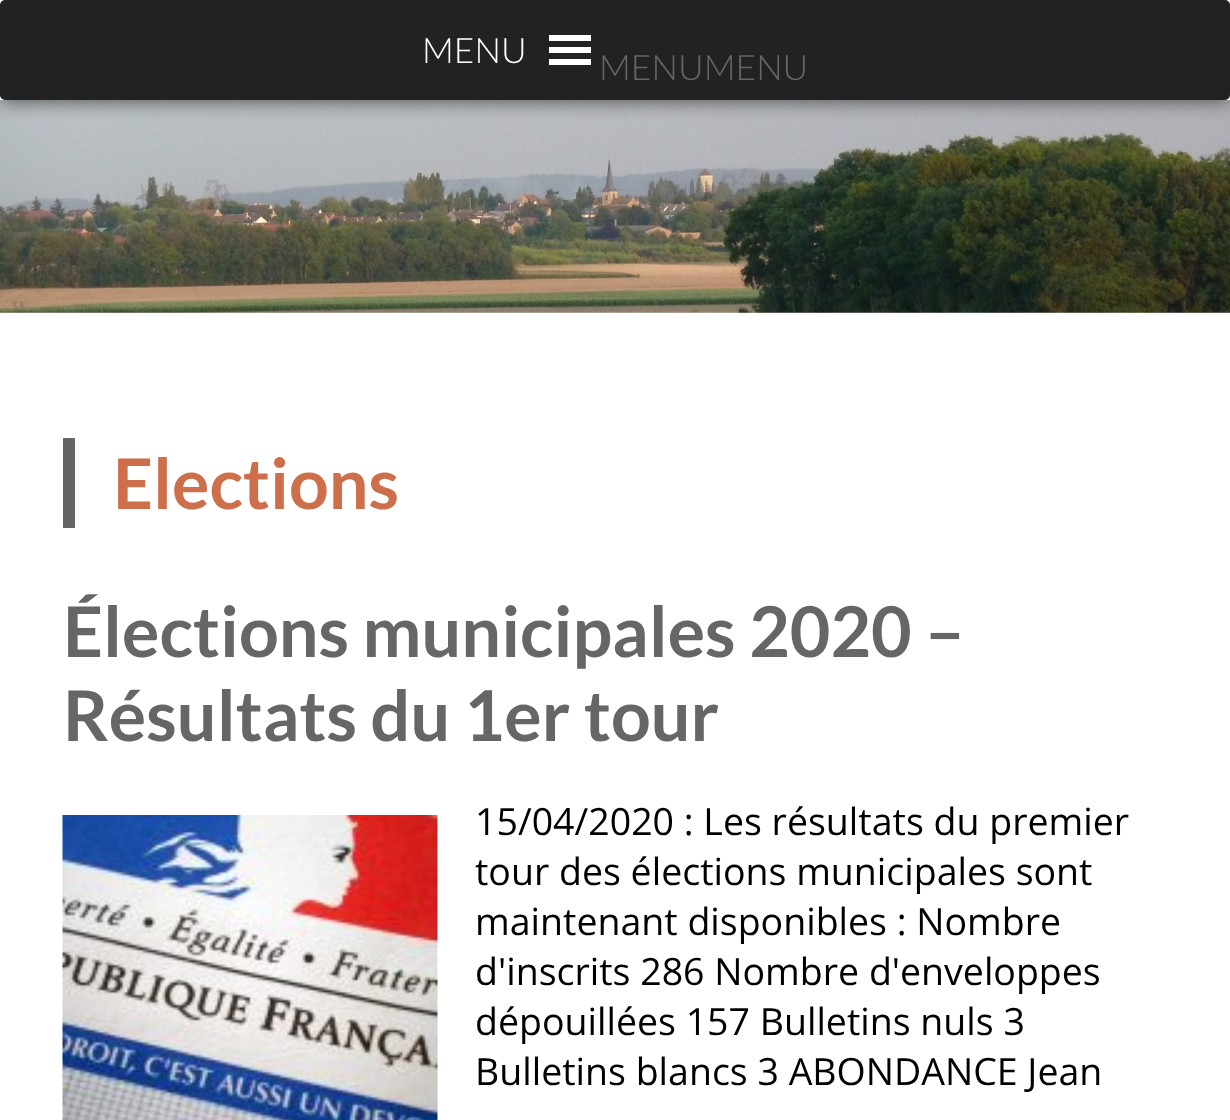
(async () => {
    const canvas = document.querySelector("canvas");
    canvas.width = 1230;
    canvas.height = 1120;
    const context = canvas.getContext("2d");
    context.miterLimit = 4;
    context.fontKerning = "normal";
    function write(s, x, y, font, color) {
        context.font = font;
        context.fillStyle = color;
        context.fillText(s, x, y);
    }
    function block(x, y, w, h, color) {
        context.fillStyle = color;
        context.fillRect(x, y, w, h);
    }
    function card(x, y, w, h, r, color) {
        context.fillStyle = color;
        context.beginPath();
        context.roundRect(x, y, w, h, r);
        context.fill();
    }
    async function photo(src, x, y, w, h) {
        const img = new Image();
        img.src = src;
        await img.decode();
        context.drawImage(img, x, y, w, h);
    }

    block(0, 0, 1230, 1120, "rgb(255, 255, 255)");
    await photo("media/1.png", 0, 100, 1230, 213);
    context.save();
    context.beginPath();
    context.rect(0, 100, 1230, 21);
    context.clip();
    context.fillStyle = "rgb(68, 68, 68)";
    context.filter = "blur(10px)";
    context.beginPath();
    context.rect(0, 0, 1230, 100);
    context.fill();
    context.filter = "none";
    context.restore();
    card(0, 0, 1230, 100, 5, "rgb(34, 34, 34)");
    write("MENU", 422, 63, "300 35px Lato", "rgb(255, 255, 255)");
    context.beginPath();
    context.moveTo(549, 65);
    context.lineTo(591, 65);
    context.lineTo(591, 59);
    context.lineTo(549, 59);
    context.closePath();
    context.moveTo(549, 35);
    context.lineTo(549, 41);
    context.lineTo(591, 41);
    context.lineTo(591, 35);
    context.closePath();
    context.moveTo(549, 53);
    context.lineTo(591, 53);
    context.lineTo(591, 47);
    context.lineTo(549, 47);
    context.closePath();
    context.fill();
    write("MENUMENU", 599, 80, "300 35px Lato", "rgb(102, 102, 102)");
    block(63, 438, 12, 90, "rgb(102, 102, 102)");
    write("Elections", 113, 509, "bold 70px Lato", "rgb(206, 111, 76)");
    write("Élections municipales 2020 –", 63, 657, "bold 70px Lato", "rgb(102, 102, 102)");
    write("Résultats du 1er tour", 63, 741, "bold 70px Lato", "rgb(102, 102, 102)");
    await photo("media/2.png", 62, 815, 376, 305);
    write("15/04/2020 : Les résultats du premier", 475, 835, "37.5px Open Sans", "rgb(0, 0, 0)");
    write("tour des élections municipales sont", 475, 885, "37.5px Open Sans", "rgb(0, 0, 0)");
    write("maintenant disponibles : Nombre", 475, 935, "37.5px Open Sans", "rgb(0, 0, 0)");
    write("d'inscrits 286 Nombre d'enveloppes", 475, 985, "37.5px Open Sans", "rgb(0, 0, 0)");
    write("dépouillées 157 Bulletins nuls 3", 475, 1035, "37.5px Open Sans", "rgb(0, 0, 0)");
    write("Bulletins blancs 3 ABONDANCE Jean", 475, 1085, "37.5px Open Sans", "rgb(0, 0, 0)");
})();
